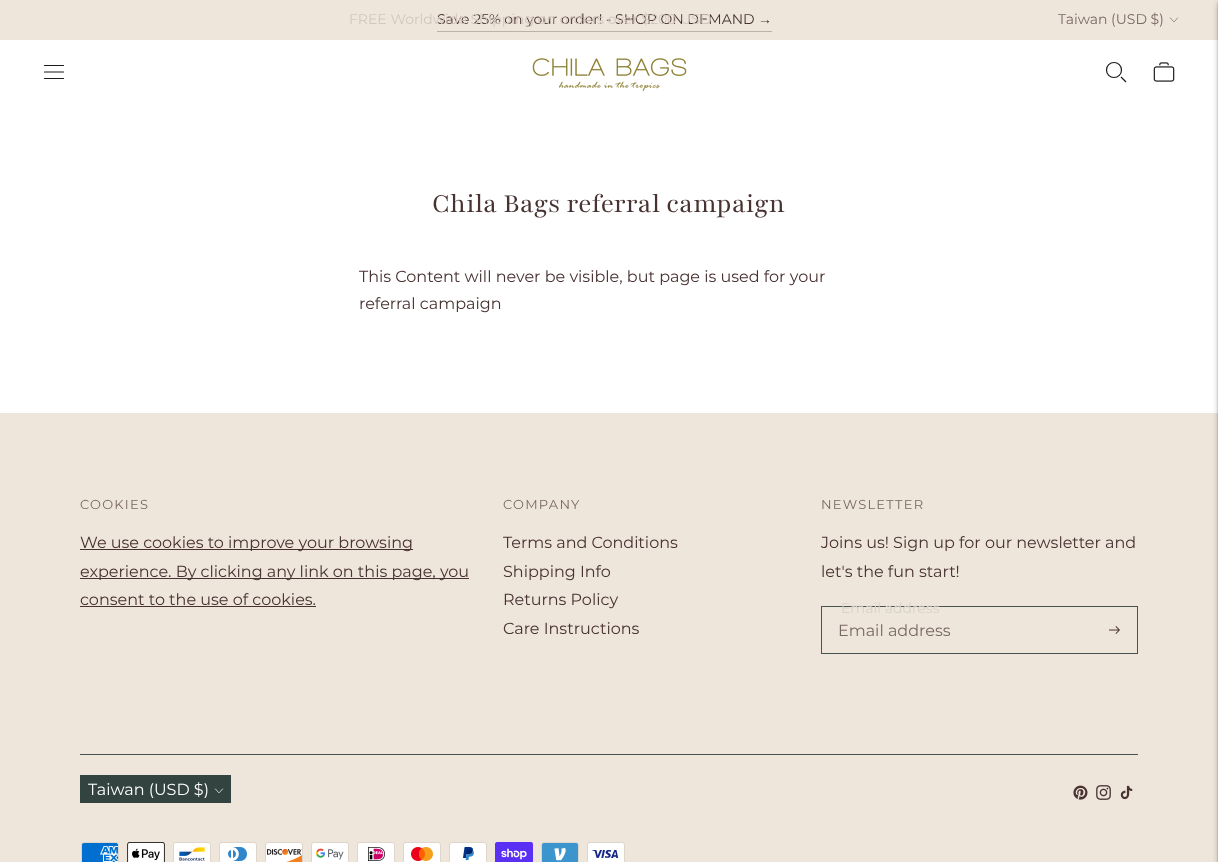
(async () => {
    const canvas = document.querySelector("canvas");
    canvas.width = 1218;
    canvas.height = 862;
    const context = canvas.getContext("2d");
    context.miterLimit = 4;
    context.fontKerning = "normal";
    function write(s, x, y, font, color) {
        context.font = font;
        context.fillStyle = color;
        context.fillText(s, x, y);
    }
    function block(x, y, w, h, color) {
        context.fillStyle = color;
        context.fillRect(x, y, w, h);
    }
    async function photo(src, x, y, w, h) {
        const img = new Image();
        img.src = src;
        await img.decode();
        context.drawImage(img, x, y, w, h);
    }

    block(0, 0, 1218, 862, "rgb(255, 255, 255)");
    block(0, 0, 1218, 40, "rgb(239, 230, 219)");
    block(0, 413, 1218, 449, "rgb(239, 230, 219)");
    context.fillStyle = "rgba(0, 0, 0, 0.1)";
    context.filter = "blur(3px)";
    context.beginPath();
    context.rect(1218, 4, 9, 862);
    context.fill();
    context.filter = "none";
    context.fillStyle = "rgba(0, 0, 0, 0.15)";
    context.filter = "blur(1px)";
    context.beginPath();
    context.rect(1218, 2, 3, 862);
    context.fill();
    context.filter = "none";
    write("Save 25% on your order! - SHOP ON DEMAND", 437, 24, "14px Montserrat", "rgb(72, 50, 50)");
    write("FREE Worldwide Shipping on orders over $200 USD", 349, 24, "14px Montserrat", "rgb(210, 199, 190)");
    write("→", 758, 24, "14px Liberation Sans", "rgb(72, 50, 50)");
    block(437, 31, 335, 1, "rgb(189, 176, 168)");
    write("Taiwan (USD $)", 1058, 24, "14px Montserrat", "rgb(122, 104, 101)");
    context.beginPath();
    context.moveTo(1170.5, 18);
    context.bezierCurveTo(1175, 23, 1173, 23, 1177.5, 18);
    context.strokeStyle = "rgb(122, 104, 101)";
    context.lineWidth = 0.8;
    context.lineCap = "round";
    context.lineJoin = "round";
    context.stroke();
    context.beginPath();
    context.moveTo(44.5, 72);
    context.lineTo(63.5, 72);
    context.moveTo(44.5, 65.5);
    context.lineTo(63.5, 65.5);
    context.moveTo(44.5, 78.5);
    context.lineTo(63.5, 78.5);
    context.strokeStyle = "rgb(27, 27, 27)";
    context.lineWidth = 1.2;
    context.stroke();
    await photo("media/1.png", 532, 58, 155, 33);
    context.beginPath();
    context.arc(1114, 70, 7.5, 0, Math.PI * 2);
    context.stroke();
    context.beginPath();
    context.moveTo(1121, 77);
    context.lineTo(1126, 82);
    context.lineCap = "butt";
    context.lineJoin = "miter";
    context.stroke();
    await photo("media/2.png", 1153, 62, 22, 20);
    context.fillStyle = "rgba(0, 0, 0, 0.1)";
    context.filter = "blur(3px)";
    context.beginPath();
    context.rect(1218, 4, 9, 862);
    context.fill();
    context.filter = "none";
    context.fillStyle = "rgba(0, 0, 0, 0.15)";
    context.filter = "blur(1px)";
    context.beginPath();
    context.rect(1218, 2, 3, 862);
    context.fill();
    context.filter = "none";
    write("Chila Bags referral campaign", 432, 212, "29px Playfair", "rgb(72, 50, 50)");
    write("This Content will never be visible, but page is used for your", 359, 282, "16px Montserrat", "rgb(72, 50, 50)");
    write("referral campaign", 359, 309, "16px Montserrat", "rgb(72, 50, 50)");
    context.letterSpacing = "1.25px";
    write("COOKIES", 80, 509, "13px Montserrat", "rgb(122, 104, 101)");
    block(80, 549, 333, 1, "rgb(72, 50, 50)");
    context.letterSpacing = "0px";
    write("We use cookies to improve your browsing", 80, 548, "16px Montserrat", "rgb(72, 50, 50)");
    block(80, 578, 389, 1, "rgb(72, 50, 50)");
    write("experience. By clicking any link on this page, you", 80, 577, "16px Montserrat", "rgb(72, 50, 50)");
    write("consent to the use of cookies.", 80, 605, "16px Montserrat", "rgb(72, 50, 50)");
    block(80, 606, 236, 1, "rgb(72, 50, 50)");
    context.letterSpacing = "1.25px";
    write("COMPANY", 503, 509, "13px Montserrat", "rgb(122, 104, 101)");
    context.letterSpacing = "0px";
    write("Terms and Conditions", 503, 548, "16px Montserrat", "rgb(72, 50, 50)");
    write("Shipping Info", 503, 577, "16px Montserrat", "rgb(72, 50, 50)");
    write("Returns Policy", 503, 605, "16px Montserrat", "rgb(72, 50, 50)");
    write("Care Instructions", 503, 634, "16px Montserrat", "rgb(72, 50, 50)");
    context.letterSpacing = "1.25px";
    write("NEWSLETTER", 821, 509, "13px Montserrat", "rgb(122, 104, 101)");
    context.letterSpacing = "0px";
    write("Joins us! Sign up for our newsletter and", 821, 548, "16px Montserrat", "rgb(72, 50, 50)");
    write("let's the fun start!", 821, 577, "16px Montserrat", "rgb(72, 50, 50)");
    context.strokeStyle = "rgb(70, 85, 82)";
    context.lineWidth = 1;
    context.strokeRect(821.5, 606.5, 316, 47);
    write("Email address", 841, 613, "14px Montserrat", "rgb(215, 209, 199)");
    write("Email address", 838, 636, "16px Montserrat", "rgb(122, 104, 101)");
    await photo("media/3.png", 1109, 626, 11, 8);
    block(80, 754, 1058, 1, "rgb(70, 85, 82)");
    block(80, 775, 151, 28, "rgb(50, 67, 64)");
    write("Taiwan (USD $)", 88, 795, "16px Montserrat", "rgb(255, 255, 255)");
    context.beginPath();
    context.moveTo(215.5, 789);
    context.bezierCurveTo(220, 794, 218, 794, 222.5, 789);
    context.strokeStyle = "rgb(255, 255, 255)";
    context.lineWidth = 0.8;
    context.lineCap = "round";
    context.lineJoin = "round";
    context.stroke();
    await photo("media/4.png", 1073, 785, 15, 15);
    await photo("media/5.png", 1096, 785, 15, 15);
    await photo("media/6.png", 1120, 785, 13, 15);
    await photo("media/7.png", 81, 842, 38, 20);
    await photo("media/8.png", 127, 842, 38, 20);
    await photo("media/9.png", 173, 842, 38, 20);
    await photo("media/10.png", 219, 842, 38, 20);
    await photo("media/11.png", 265, 842, 38, 20);
    await photo("media/12.png", 311, 842, 38, 20);
    await photo("media/13.png", 357, 842, 38, 20);
    await photo("media/14.png", 403, 842, 38, 20);
    await photo("media/15.png", 449, 842, 38, 20);
    await photo("media/16.png", 495, 842, 38, 20);
    await photo("media/17.png", 541, 842, 38, 20);
    await photo("media/18.png", 587, 842, 38, 20);
})();
